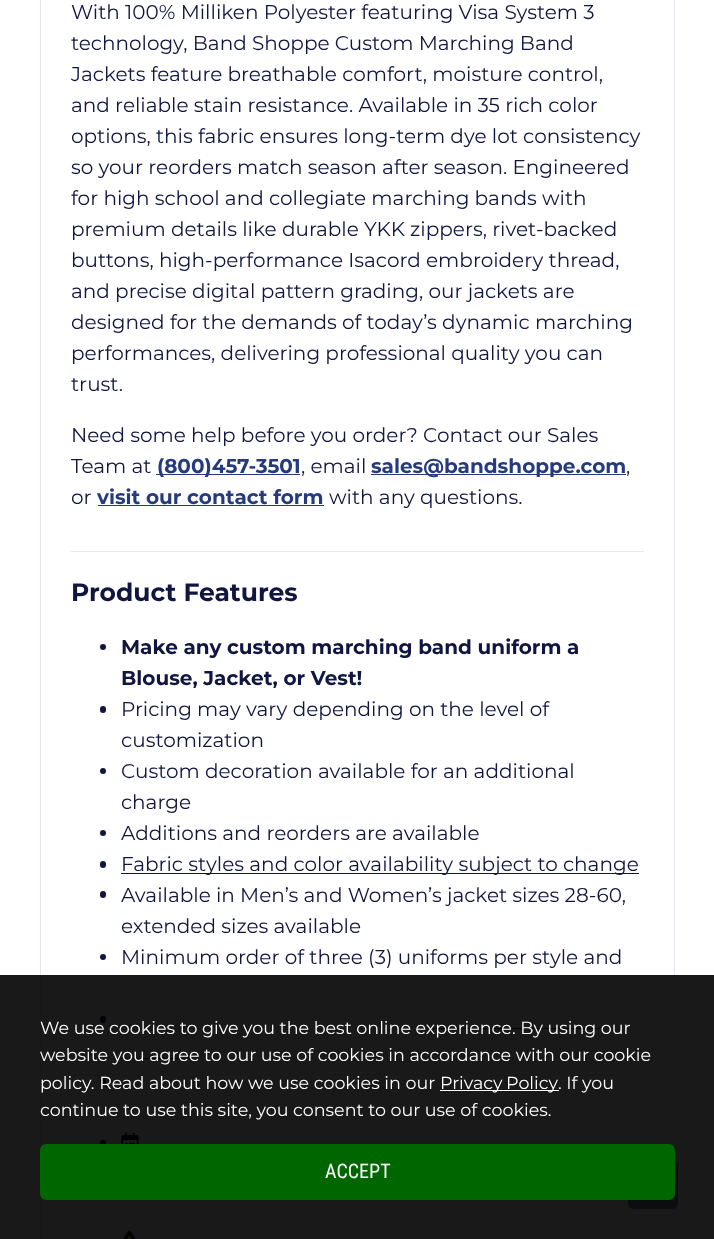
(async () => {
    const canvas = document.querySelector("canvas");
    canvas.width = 714;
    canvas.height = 1239;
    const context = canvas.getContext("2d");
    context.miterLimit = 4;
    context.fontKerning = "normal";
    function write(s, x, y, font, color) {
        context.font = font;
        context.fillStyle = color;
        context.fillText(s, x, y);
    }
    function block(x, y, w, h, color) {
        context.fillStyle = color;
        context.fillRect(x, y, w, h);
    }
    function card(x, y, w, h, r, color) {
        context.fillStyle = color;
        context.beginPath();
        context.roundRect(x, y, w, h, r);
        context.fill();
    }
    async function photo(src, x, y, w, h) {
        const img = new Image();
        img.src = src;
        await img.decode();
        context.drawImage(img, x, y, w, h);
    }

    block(0, 0, 714, 1239, "rgb(255, 255, 255)");
    context.strokeStyle = "rgb(230, 232, 241)";
    context.strokeRect(40.5, -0.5, 634, 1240);
    write("With 100% Milliken Polyester featuring Visa System 3", 71, 19, "20px Montserrat", "rgb(17, 22, 65)");
    write("technology, Band Shoppe Custom Marching Band", 71, 50, "20px Montserrat", "rgb(17, 22, 65)");
    write("Jackets feature breathable comfort, moisture control,", 71, 81, "20px Montserrat", "rgb(17, 22, 65)");
    write("and reliable stain resistance. Available in 35 rich color", 71, 112, "20px Montserrat", "rgb(17, 22, 65)");
    write("options, this fabric ensures long-term dye lot consistency", 71, 143, "20px Montserrat", "rgb(17, 22, 65)");
    write("so your reorders match season after season. Engineered", 71, 174, "20px Montserrat", "rgb(17, 22, 65)");
    write("for high school and collegiate marching bands with", 71, 205, "20px Montserrat", "rgb(17, 22, 65)");
    write("premium details like durable YKK zippers, rivet-backed", 71, 236, "20px Montserrat", "rgb(17, 22, 65)");
    write("buttons, high-performance Isacord embroidery thread,", 71, 267, "20px Montserrat", "rgb(17, 22, 65)");
    write("and precise digital pattern grading, our jackets are", 71, 298, "20px Montserrat", "rgb(17, 22, 65)");
    write("designed for the demands of today’s dynamic marching", 71, 329, "20px Montserrat", "rgb(17, 22, 65)");
    write("performances, delivering professional quality you can", 71, 360, "20px Montserrat", "rgb(17, 22, 65)");
    write("trust.", 71, 391, "20px Montserrat", "rgb(17, 22, 65)");
    write("Need some help before you order? Contact our Sales", 71, 442, "20px Montserrat", "rgb(17, 22, 65)");
    write("Team at", 71, 473, "20px Montserrat", "rgb(17, 22, 65)");
    block(156, 474, 144, 1, "rgb(37, 59, 125)");
    write("(800)457-3501", 157, 473, "bold 20px Montserrat", "rgb(37, 59, 125)");
    write(", email", 301, 473, "20px Montserrat", "rgb(17, 22, 65)");
    block(371, 474, 255, 1, "rgb(37, 59, 125)");
    write("sales@bandshoppe.com", 371, 473, "bold 20px Montserrat", "rgb(37, 59, 125)");
    write(",", 626, 473, "20px Montserrat", "rgb(17, 22, 65)");
    write("or", 71, 504, "20px Montserrat", "rgb(17, 22, 65)");
    write("visit our contact form", 97, 504, "bold 20px Montserrat", "rgb(37, 59, 125)");
    block(98, 505, 226, 1, "rgb(37, 59, 125)");
    write("with any questions.", 329, 504, "20px Montserrat", "rgb(17, 22, 65)");
    block(71, 551, 573, 1, "rgb(230, 232, 242)");
    write("Product Features", 71, 601, "bold 25px Montserrat", "rgb(17, 22, 65)");
    context.beginPath();
    context.arc(103, 647, 3, 0, Math.PI * 2);
    context.fill();
    write("Make any custom marching band uniform a", 121, 654, "bold 20px Montserrat", "rgb(17, 22, 65)");
    write("Blouse, Jacket, or Vest!", 121, 685, "bold 20px Montserrat", "rgb(17, 22, 65)");
    card(100, 706, 6, 7, 3, "rgb(17, 22, 65)");
    write("Pricing may vary depending on the level of", 121, 716, "20px Montserrat", "rgb(17, 22, 65)");
    write("customization", 121, 747, "20px Montserrat", "rgb(17, 22, 65)");
    context.beginPath();
    context.arc(103, 771, 3, 0, Math.PI * 2);
    context.fill();
    write("Custom decoration available for an additional", 121, 778, "20px Montserrat", "rgb(17, 22, 65)");
    write("charge", 121, 809, "20px Montserrat", "rgb(17, 22, 65)");
    context.beginPath();
    context.arc(103, 833, 3, 0, Math.PI * 2);
    context.fill();
    write("Additions and reorders are available", 121, 840, "20px Montserrat", "rgb(17, 22, 65)");
    card(100, 861, 6, 7, 3, "rgb(17, 22, 65)");
    block(121, 873, 518, 1, "rgb(17, 22, 65)");
    write("Fabric styles and color availability subject to change", 121, 871, "20px Montserrat", "rgb(17, 22, 65)");
    card(100, 891, 6, 7, 3, "rgb(17, 22, 65)");
    write("Available in Men’s and Women’s jacket sizes 28-60,", 121, 902, "20px Montserrat", "rgb(17, 22, 65)");
    write("extended sizes available", 121, 933, "20px Montserrat", "rgb(17, 22, 65)");
    context.beginPath();
    context.arc(103, 957, 3, 0, Math.PI * 2);
    context.fill();
    write("Minimum order of three (3) uniforms per style and", 121, 964, "20px Montserrat", "rgb(17, 22, 65)");
    card(100, 1016, 6, 7, 3, "rgb(17, 22, 65)");
    block(434, 1028, 166, 1, "rgb(37, 59, 125)");
    block(121, 1058, 62, 1, "rgb(37, 59, 125)");
    context.fillStyle = "rgb(17, 22, 65)";
    context.beginPath();
    context.arc(103, 1081, 3, 0, Math.PI * 2);
    context.fill();
    context.beginPath();
    context.arc(103, 1143, 3, 0, Math.PI * 2);
    context.fill();
    await photo("media/1.png", 121, 1132, 18, 12);
    await photo("media/2.png", 122, 1229, 15, 10);
    card(628, 1159, 50, 50, 5, "rgba(37, 59, 125, 0.6)");
    block(0, 975, 714, 264, "rgba(0, 0, 0, 0.9)");
    write("We use cookies to give you the best online experience. By using our", 40, 1034, "17.5px Montserrat", "rgb(255, 255, 255)");
    write("website you agree to our use of cookies in accordance with our cookie", 40, 1061, "17.5px Montserrat", "rgb(255, 255, 255)");
    write("policy. Read about how we use cookies in our", 40, 1089, "17.5px Montserrat", "rgb(255, 255, 255)");
    block(440, 1090, 119, 1, "rgb(255, 255, 255)");
    context.wordSpacing = "-1px";
    write("Privacy Policy", 440, 1089, "17.5px Montserrat", "rgb(255, 255, 255)");
    context.wordSpacing = "0px";
    write(". If you", 558, 1089, "17.5px Montserrat", "rgb(255, 255, 255)");
    write("continue to use this site, you consent to our use of cookies.", 40, 1116, "17.5px Montserrat", "rgb(255, 255, 255)");
    context.fillStyle = "rgb(0, 102, 0)";
    context.beginPath();
    context.roundRect(41.5, 1145.5, 632, 53, 4.5);
    context.fill();
    context.strokeStyle = "rgb(0, 102, 0)";
    context.lineWidth = 3;
    context.stroke();
    write("ACCEPT", 325, 1178, "20px Roboto Condensed", "rgb(255, 255, 255)");
})();
